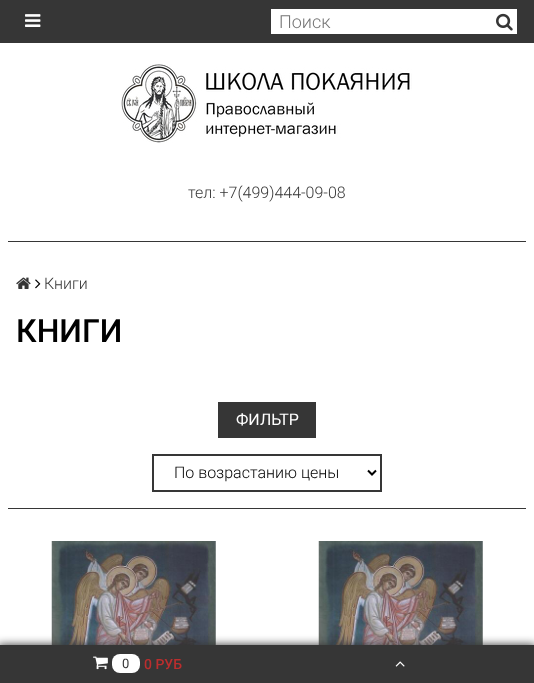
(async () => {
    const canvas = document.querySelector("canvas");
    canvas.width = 534;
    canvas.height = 683;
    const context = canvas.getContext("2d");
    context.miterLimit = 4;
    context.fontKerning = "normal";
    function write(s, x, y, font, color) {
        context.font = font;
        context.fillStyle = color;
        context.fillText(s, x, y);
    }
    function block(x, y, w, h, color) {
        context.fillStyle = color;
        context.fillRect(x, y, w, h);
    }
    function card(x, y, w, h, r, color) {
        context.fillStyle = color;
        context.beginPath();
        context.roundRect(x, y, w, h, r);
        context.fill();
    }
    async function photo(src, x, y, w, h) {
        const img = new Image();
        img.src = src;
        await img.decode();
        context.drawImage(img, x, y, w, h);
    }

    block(0, 0, 534, 683, "rgb(255, 255, 255)");
    block(0, 0, 534, 43, "rgb(54, 54, 54)");
    await photo("media/1.png", 25, 14, 16, 13);
    block(271, 9, 246, 25, "rgb(255, 255, 255)");
    write("Поиск", 279, 28, "300 18px Roboto", "rgb(117, 117, 117)");
    await photo("media/2.png", 496, 13, 17, 18);
    await photo("media/3.png", 121, 64, 291, 79);
    write("тел: +7(499)444-09-08", 188, 198, "300 16px Roboto", "rgb(54, 54, 54)");
    block(8, 241, 518, 1, "rgb(54, 54, 54)");
    await photo("media/4.png", 16, 277, 15, 12);
    await photo("media/5.png", 35, 279, 6, 10);
    write("Книги", 44, 289, "300 16px Roboto", "rgb(54, 54, 54)");
    write("КНИГИ", 16, 342, "500 32px Roboto", "rgb(0, 0, 0)");
    block(8, 508, 518, 1, "rgb(54, 54, 54)");
    block(218, 402, 98, 36, "rgb(54, 54, 54)");
    write("ФИЛЬТР", 236, 425, "16px Roboto", "rgb(255, 255, 255)");
    context.strokeStyle = "rgb(54, 54, 54)";
    context.lineWidth = 2;
    context.strokeRect(153, 455, 228, 36);
    context.beginPath();
    context.moveTo(368, 470.5);
    context.lineTo(372, 474.5);
    context.lineTo(376, 470.5);
    context.strokeStyle = "rgb(0, 0, 0)";
    context.stroke();
    write("По возрастанию цены", 174, 478, "300 16px Roboto", "rgb(0, 0, 0)");
    await photo("media/6.png", 51, 541, 165, 104);
    await photo("media/7.png", 318, 541, 165, 104);
    context.fillStyle = "rgb(51, 51, 51)";
    context.filter = "blur(5px)";
    context.beginPath();
    context.rect(-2, 645, 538, 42);
    context.fill();
    context.filter = "none";
    block(0, 645, 534, 38, "rgb(54, 54, 54)");
    await photo("media/8.png", 93, 656, 15, 14);
    card(112, 654, 28, 19, 8, "rgb(255, 255, 255)");
    write("0", 122, 668, "13px Roboto", "rgb(54, 54, 54)");
    write("0 РУБ", 144, 669, "500 14px Roboto", "rgb(187, 46, 46)");
    await photo("media/9.png", 395, 661, 10, 6);
})();
